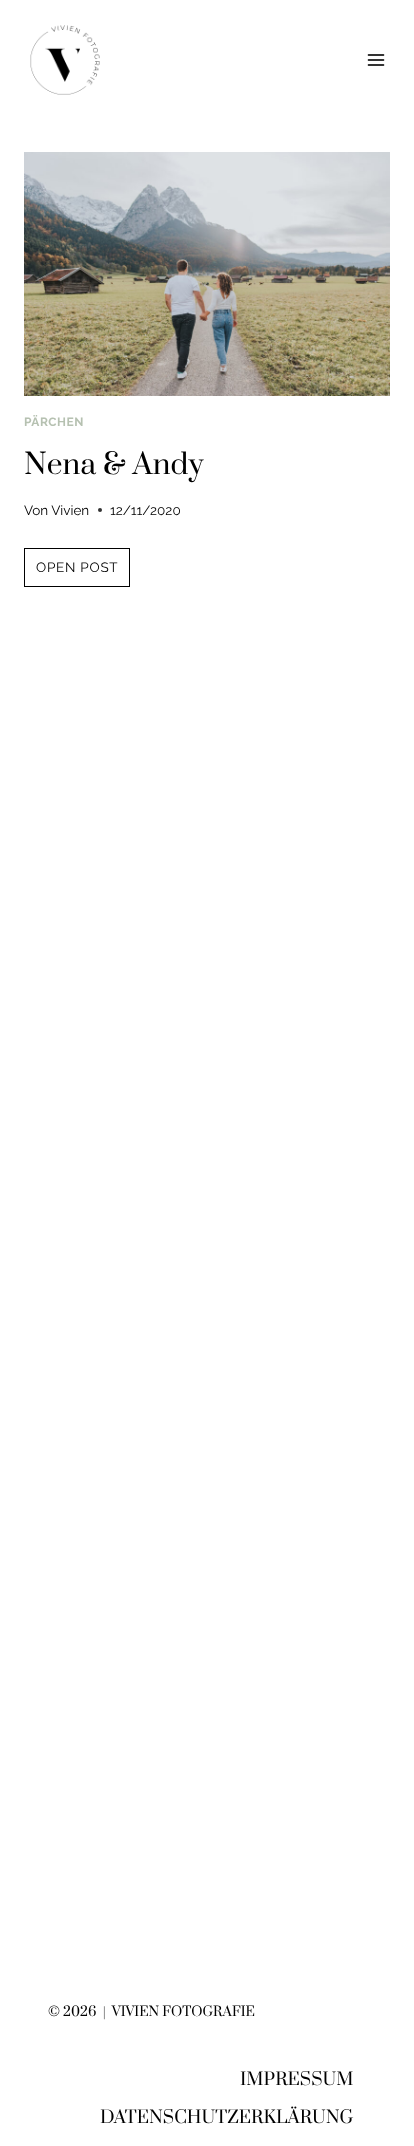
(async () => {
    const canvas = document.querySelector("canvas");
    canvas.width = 414;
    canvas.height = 2146;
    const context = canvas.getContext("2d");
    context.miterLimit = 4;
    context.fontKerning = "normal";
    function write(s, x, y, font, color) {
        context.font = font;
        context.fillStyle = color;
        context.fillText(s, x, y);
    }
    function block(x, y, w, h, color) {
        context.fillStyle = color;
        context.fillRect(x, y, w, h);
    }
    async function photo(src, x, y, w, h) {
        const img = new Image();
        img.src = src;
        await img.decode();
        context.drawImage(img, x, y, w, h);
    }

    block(0, 0, 414, 2146, "rgb(255, 255, 255)");
    await photo("media/1.png", 30, 25, 70, 70);
    await photo("media/2.png", 367, 54, 18, 12);
    await photo("media/3.png", 24, 152, 366, 244);
    context.letterSpacing = "0.5px";
    write("PÄRCHEN", 24, 426, "bold 12px Raleway", "rgb(182, 193, 177)");
    context.letterSpacing = "0px";
    write("Nena & Andy", 24, 474, "28px Prata", "rgb(0, 0, 0)");
    write("Von Vivien", 24, 515, "13.5px Raleway", "rgb(0, 0, 0)");
    context.fillStyle = "rgb(51, 51, 51)";
    context.beginPath();
    context.arc(100, 510, 2, 0, Math.PI * 2);
    context.fill();
    write("12/11/2020", 110, 515, "13.5px Raleway", "rgb(0, 0, 0)");
    context.strokeStyle = "rgb(0, 0, 0)";
    context.strokeRect(24.5, 548.5, 105, 38);
    context.letterSpacing = "0.75px";
    write("OPEN POST", 36, 572, "13.5px Raleway", "rgb(0, 0, 0)");
    context.letterSpacing = "0px";
    write("© 2026  |  VIVIEN FOTOGRAFIE", 48, 2016, "13px Prata", "rgb(0, 0, 0)");
    write("IMPRESSUM", 240, 2085, "17px Prata", "rgb(0, 0, 0)");
    write("DATENSCHUTZERKLÄRUNG", 100, 2123, "17px Prata", "rgb(0, 0, 0)");
})();
